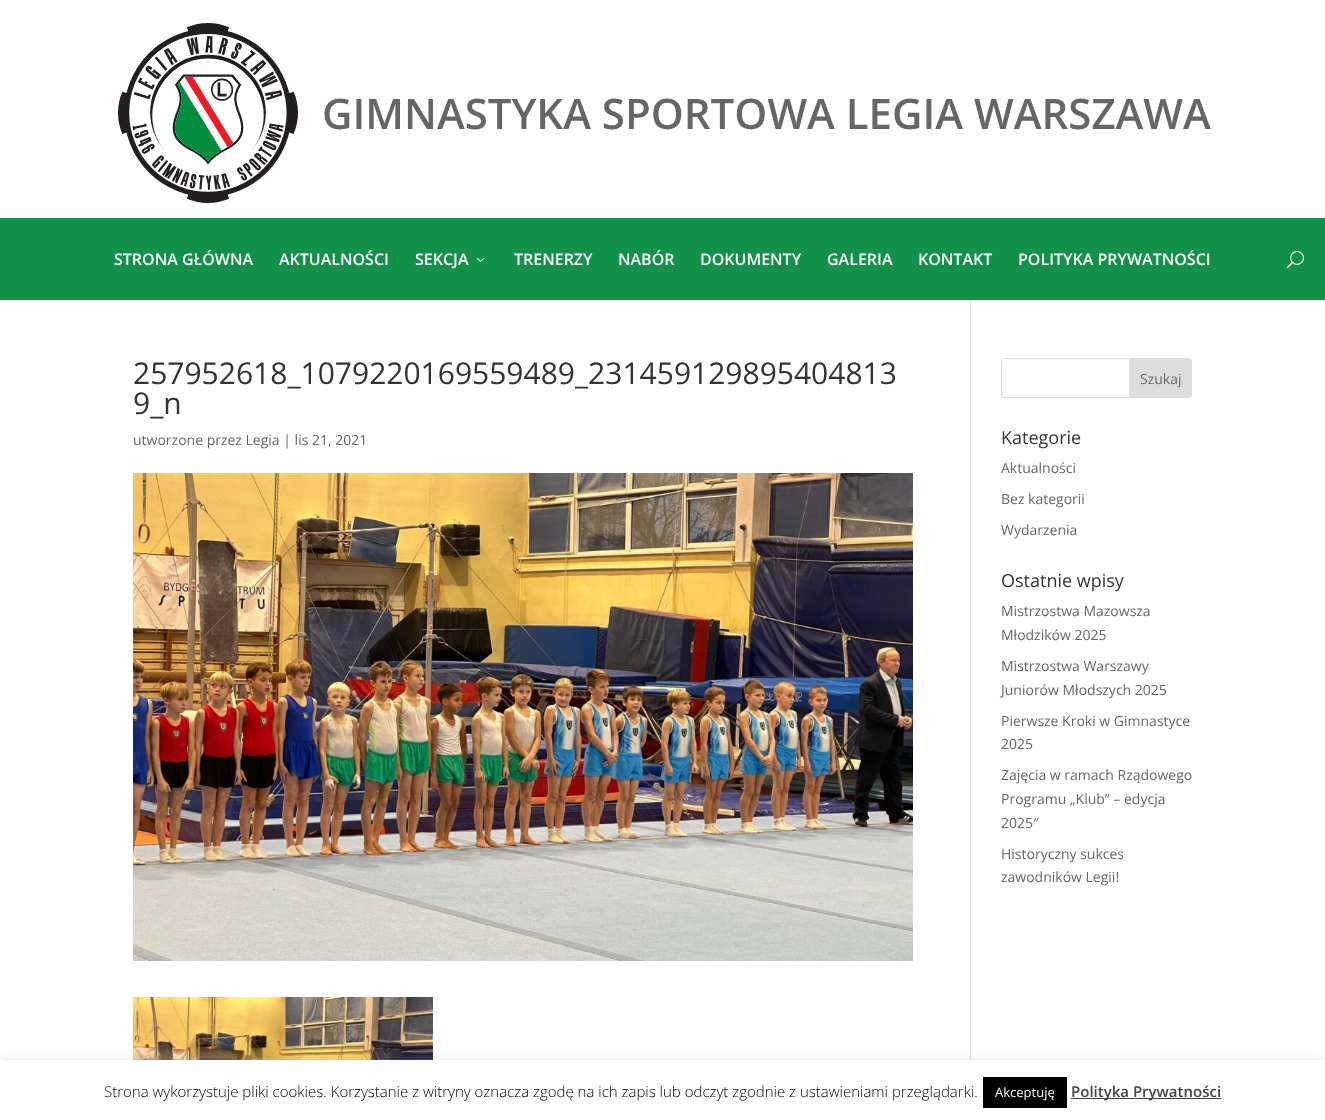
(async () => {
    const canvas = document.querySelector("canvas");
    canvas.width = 1325;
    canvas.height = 1120;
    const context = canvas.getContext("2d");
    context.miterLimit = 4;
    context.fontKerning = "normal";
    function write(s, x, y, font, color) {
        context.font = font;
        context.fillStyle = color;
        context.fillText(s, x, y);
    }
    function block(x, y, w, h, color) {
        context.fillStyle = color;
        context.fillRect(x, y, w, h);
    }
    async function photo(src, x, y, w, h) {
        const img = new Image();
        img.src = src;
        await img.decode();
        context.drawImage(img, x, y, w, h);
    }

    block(0, 0, 1325, 1120, "rgb(255, 255, 255)");
    block(0, 300, 1325, 1, "rgb(230, 230, 230)");
    await photo("media/1.png", 118, 23, 180, 180);
    write("GIMNASTYKA SPORTOWA LEGIA WARSZAWA", 322, 129, "600 42px Open Sans", "rgb(102, 102, 102)");
    block(0, 218, 1325, 82, "rgb(18, 145, 74)");
    write("STRONA GŁÓWNA", 114, 265, "600 16px Open Sans", "rgb(255, 255, 255)");
    write("AKTUALNOŚCI", 279, 265, "600 16px Open Sans", "rgb(255, 255, 255)");
    write("SEKCJA", 415, 265, "600 16px Open Sans", "rgb(255, 255, 255)");
    await photo("media/2.png", 476, 257, 9, 5);
    write("TRENERZY", 514, 265, "600 16px Open Sans", "rgb(255, 255, 255)");
    write("NABÓR", 618, 265, "600 16px Open Sans", "rgb(255, 255, 255)");
    write("DOKUMENTY", 700, 265, "600 16px Open Sans", "rgb(255, 255, 255)");
    write("GALERIA", 827, 265, "600 16px Open Sans", "rgb(255, 255, 255)");
    write("KONTAKT", 918, 265, "600 16px Open Sans", "rgb(255, 255, 255)");
    write("POLITYKA PRYWATNOŚCI", 1018, 265, "600 16px Open Sans", "rgb(255, 255, 255)");
    await photo("media/3.png", 1287, 251, 17, 18);
    block(970, 300, 1, 760, "rgb(226, 226, 226)");
    block(970, 300, 1, 1, "rgb(203, 203, 203)");
    write("257952618_1079220169559489_231459129895404813", 133, 384, "30px Open Sans", "rgb(51, 51, 51)");
    write("9_n", 133, 414, "30px Open Sans", "rgb(51, 51, 51)");
    write("utworzone przez Legia | lis 21, 2021", 133, 445, "14px Open Sans", "rgb(102, 102, 102)");
    await photo("media/4.png", 133, 473, 780, 488);
    await photo("media/5.png", 133, 997, 300, 63);
    context.beginPath();
    context.roundRect(1001.5, 358.5, 190, 39, 2.5);
    context.strokeStyle = "rgb(221, 221, 221)";
    context.stroke();
    context.fillStyle = "rgb(221, 221, 221)";
    context.beginPath();
    context.roundRect(1129.5, 358.5, 62, 39, [0, 2.5, 2.5, 0]);
    context.fill();
    context.stroke();
    write("Szukaj", 1140, 384, "14px Open Sans", "rgb(102, 102, 102)");
    write("Kategorie", 1001, 444, "18px Open Sans", "rgb(51, 51, 51)");
    write("Aktualności", 1001, 473, "14px Open Sans", "rgb(102, 102, 102)");
    write("Bez kategorii", 1001, 504, "14px Open Sans", "rgb(102, 102, 102)");
    write("Wydarzenia", 1001, 535, "14px Open Sans", "rgb(102, 102, 102)");
    write("Ostatnie wpisy", 1001, 587, "18px Open Sans", "rgb(51, 51, 51)");
    write("Mistrzostwa Mazowsza", 1001, 616, "14px Open Sans", "rgb(102, 102, 102)");
    write("Młodzików 2025", 1001, 640, "14px Open Sans", "rgb(102, 102, 102)");
    write("Mistrzostwa Warszawy", 1001, 671, "14px Open Sans", "rgb(102, 102, 102)");
    write("Juniorów Młodszych 2025", 1001, 695, "14px Open Sans", "rgb(102, 102, 102)");
    write("Pierwsze Kroki w Gimnastyce", 1001, 726, "14px Open Sans", "rgb(102, 102, 102)");
    write("2025", 1001, 749, "14px Open Sans", "rgb(102, 102, 102)");
    write("Zajęcia w ramach Rządowego", 1001, 780, "14px Open Sans", "rgb(102, 102, 102)");
    write("Programu „Klub” – edycja", 1001, 804, "14px Open Sans", "rgb(102, 102, 102)");
    write("2025″", 1001, 828, "14px Open Sans", "rgb(102, 102, 102)");
    write("Historyczny sukces", 1001, 859, "14px Open Sans", "rgb(102, 102, 102)");
    write("zawodników Legii!", 1001, 882, "14px Open Sans", "rgb(102, 102, 102)");
    context.fillStyle = "rgba(172, 171, 171, 0.3)";
    context.filter = "blur(5px)";
    context.beginPath();
    context.rect(0, 1059, 1325, 60);
    context.fill();
    context.filter = "none";
    block(0, 1060, 1325, 60, "rgb(255, 255, 255)");
    write("Strona wykorzystuje pliki cookies. Korzystanie z witryny oznacza zgodę na ich zapis lub odczyt zgodnie z ustawieniami przeglądarki.", 104, 1097, "300 15px Open Sans", "rgb(0, 0, 0)");
    block(983, 1077, 84, 31, "rgb(0, 0, 0)");
    write("Akceptuję", 995, 1097, "13px Open Sans", "rgb(255, 255, 255)");
    block(1071, 1098, 150, 1, "rgb(68, 68, 68)");
    write("Polityka Prywatności", 1071, 1097, "600 15px Open Sans", "rgb(68, 68, 68)");
})();
